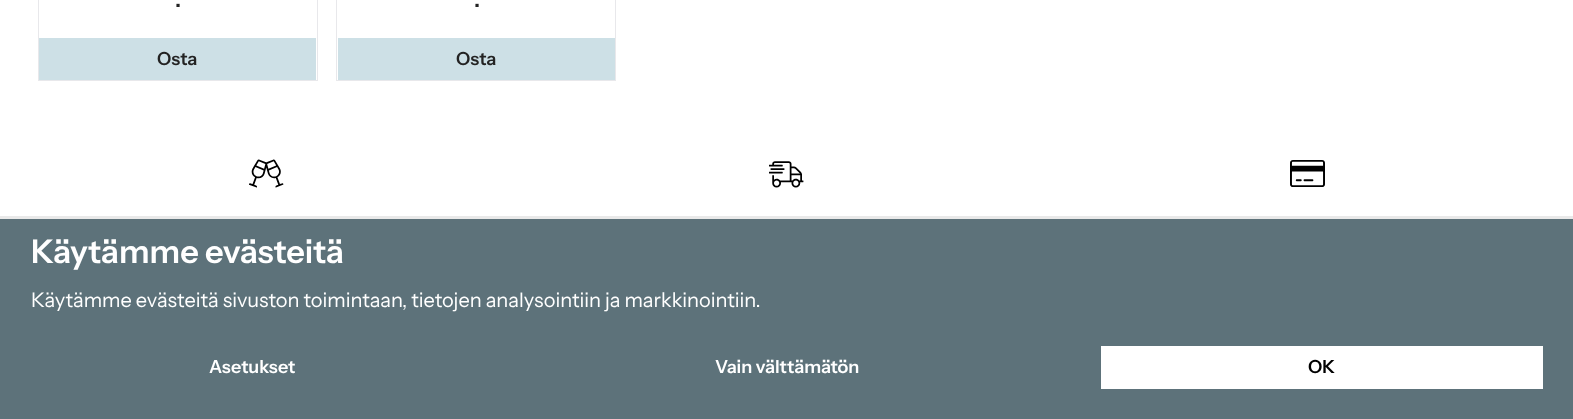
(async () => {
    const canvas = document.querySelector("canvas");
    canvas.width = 1573;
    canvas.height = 419;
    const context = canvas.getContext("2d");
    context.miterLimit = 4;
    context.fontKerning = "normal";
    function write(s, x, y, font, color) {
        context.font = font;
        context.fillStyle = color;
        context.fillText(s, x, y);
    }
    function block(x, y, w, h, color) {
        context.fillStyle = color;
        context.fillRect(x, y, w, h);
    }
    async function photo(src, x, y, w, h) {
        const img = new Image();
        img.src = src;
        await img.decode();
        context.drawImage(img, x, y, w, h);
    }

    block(0, 0, 1573, 419, "rgb(255, 255, 255)");
    context.strokeStyle = "rgb(232, 232, 235)";
    context.strokeRect(38.5, -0.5, 279, 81);
    write(".", 175, 7, "600 22px Instrument Sans", "rgb(35, 35, 35)");
    block(39, 38, 277, 42, "rgb(205, 224, 230)");
    write("Osta", 157, 65, "600 18px Instrument Sans", "rgb(35, 35, 35)");
    context.strokeRect(336.5, -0.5, 279, 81);
    write(".", 474, 7, "600 22px Instrument Sans", "rgb(35, 35, 35)");
    block(338, 38, 277, 42, "rgb(205, 224, 230)");
    write("Osta", 456, 65, "600 18px Instrument Sans", "rgb(35, 35, 35)");
    await photo("media/1.png", 249, 159, 35, 29);
    await photo("media/2.png", 769, 161, 35, 27);
    await photo("media/3.png", 1290, 160, 35, 27);
    block(0, 219, 1573, 200, "rgb(93, 114, 122)");
    block(0, 216, 1573, 3, "rgb(233, 233, 233)");
    write("Käytämme evästeitä", 31, 263, "600 32.5px Instrument Sans", "rgb(255, 255, 255)");
    write("Käytämme evästeitä sivuston toimintaan, tietojen analysointiin ja markkinointiin.", 31, 307, "20px Instrument Sans", "rgb(255, 255, 255)");
    write("Asetukset", 209, 373, "600 18px Instrument Sans", "rgb(255, 255, 255)");
    write("Vain välttämätön", 715, 373, "600 18px Instrument Sans", "rgb(255, 255, 255)");
    block(1101, 346, 442, 43, "rgb(255, 255, 255)");
    write("OK", 1308, 373, "600 18px Instrument Sans", "rgb(0, 0, 0)");
})();
